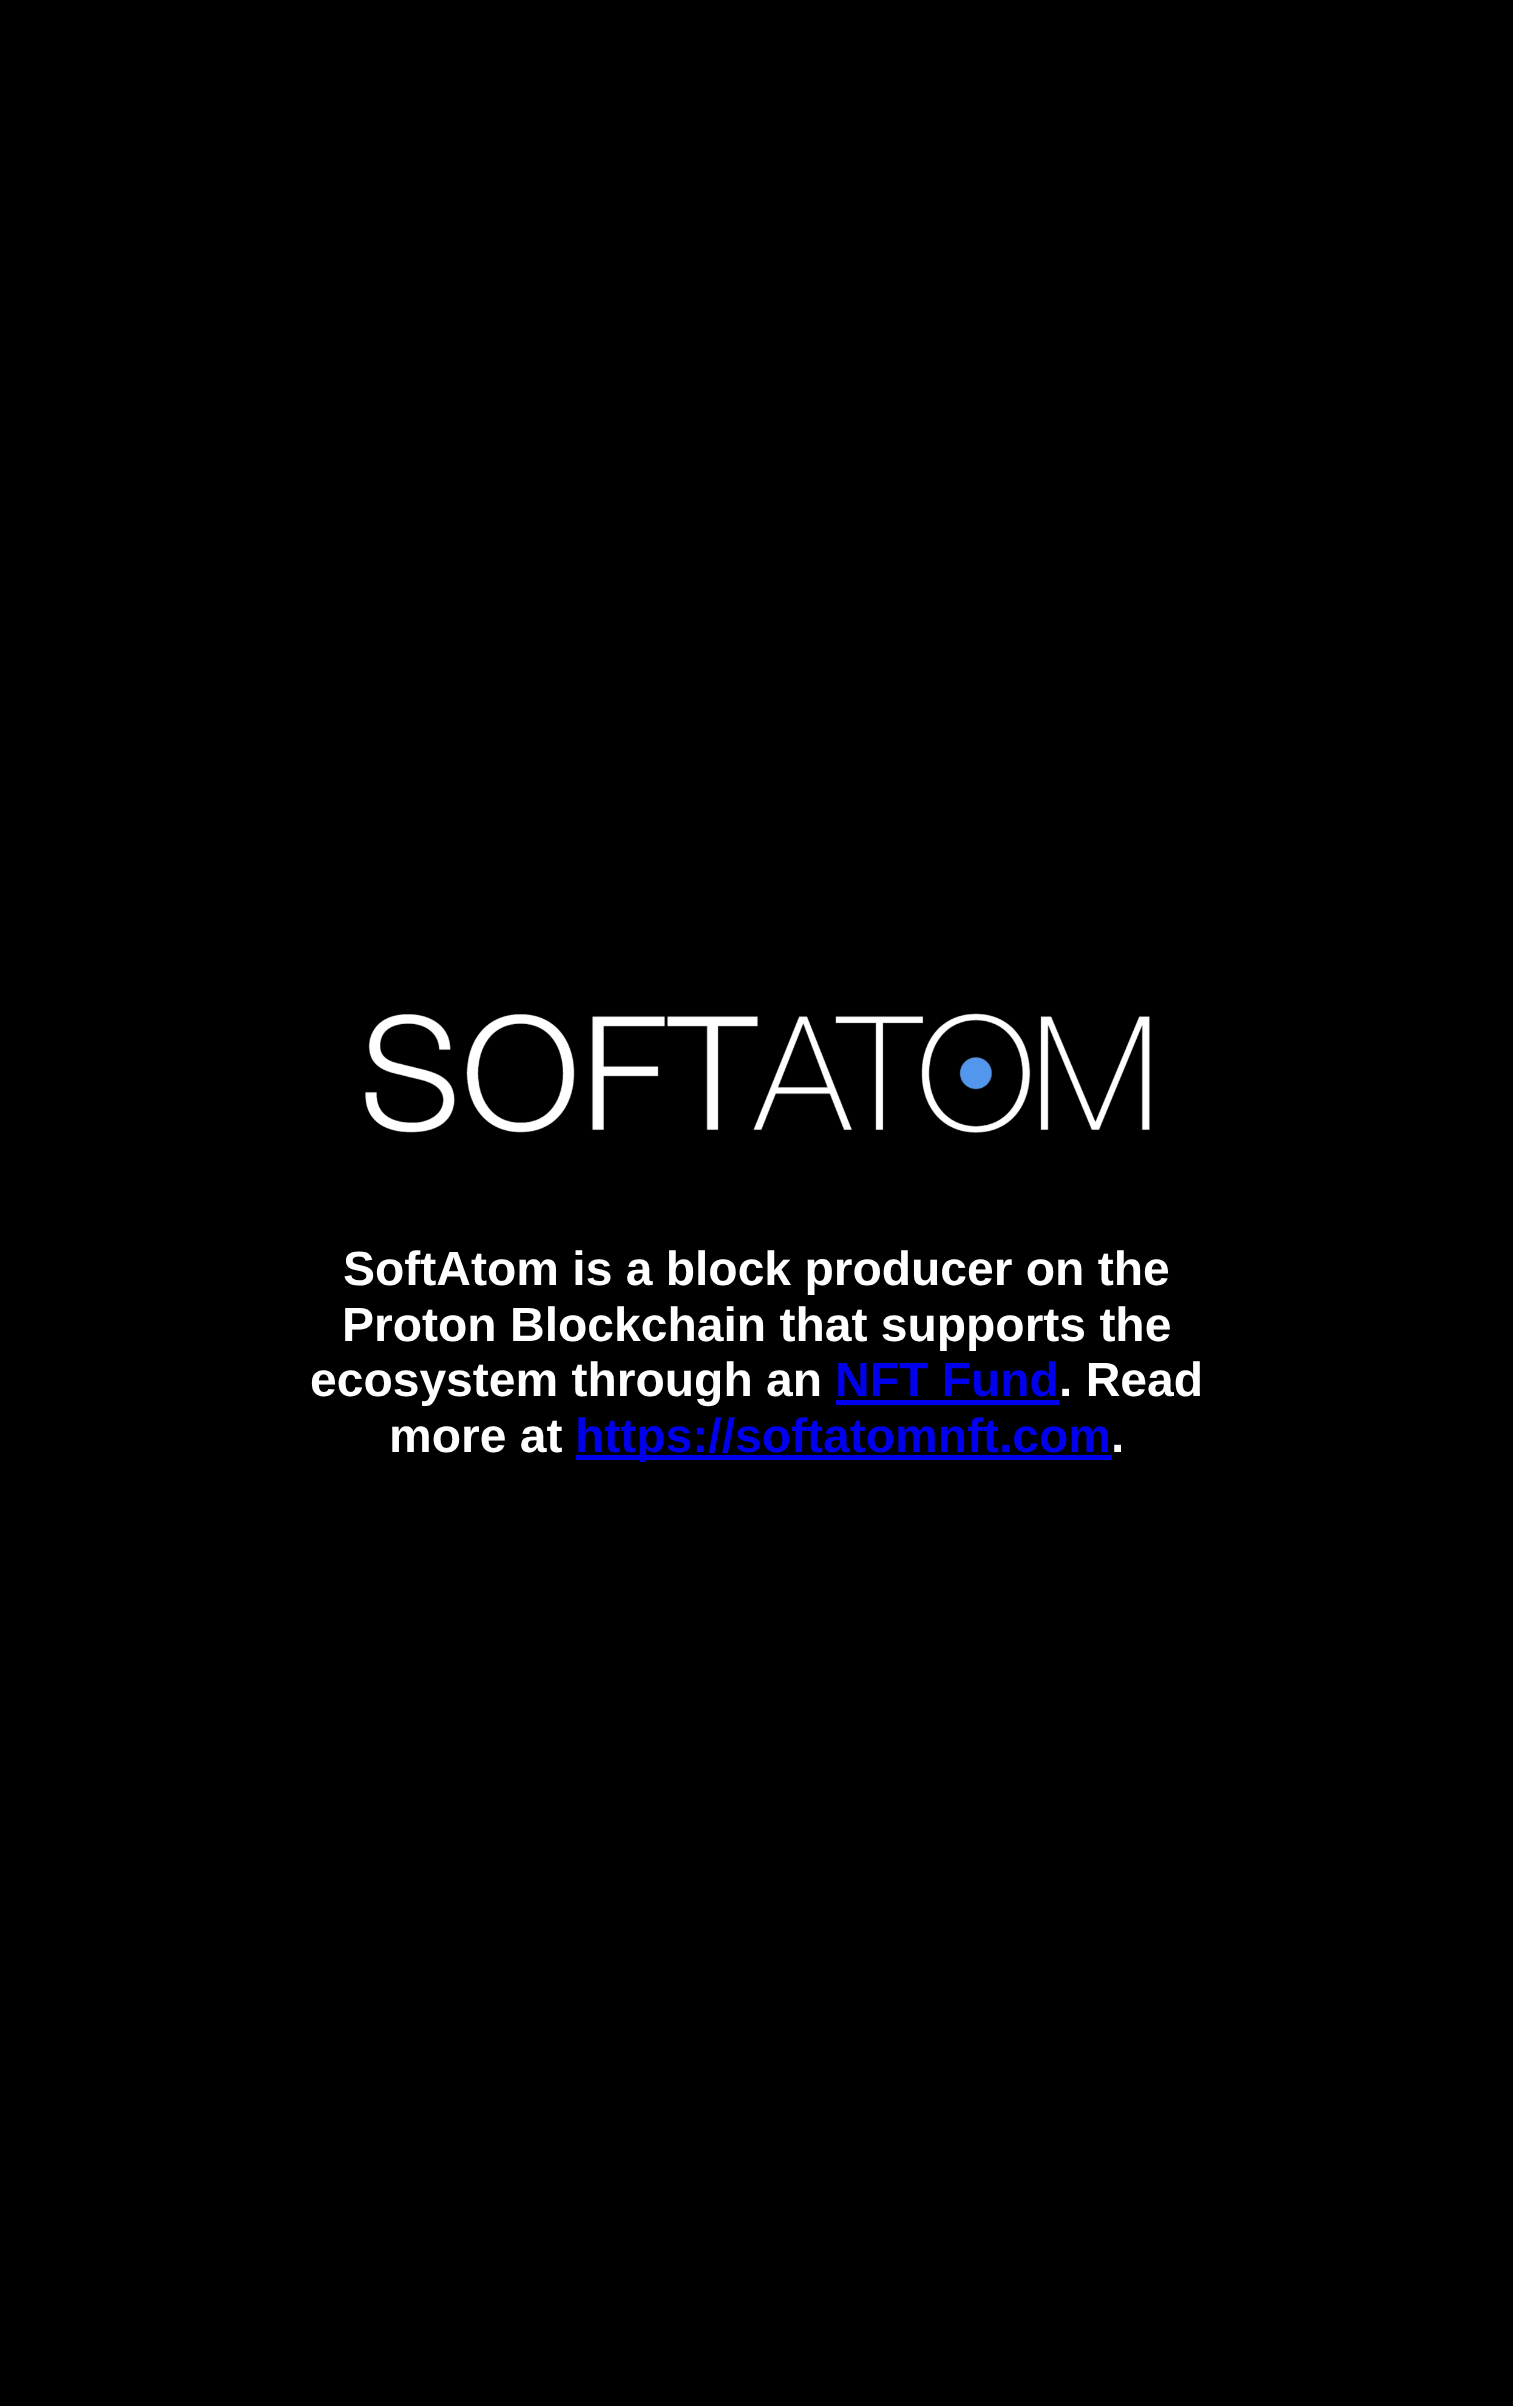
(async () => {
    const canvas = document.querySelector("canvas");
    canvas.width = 1513;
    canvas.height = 2406;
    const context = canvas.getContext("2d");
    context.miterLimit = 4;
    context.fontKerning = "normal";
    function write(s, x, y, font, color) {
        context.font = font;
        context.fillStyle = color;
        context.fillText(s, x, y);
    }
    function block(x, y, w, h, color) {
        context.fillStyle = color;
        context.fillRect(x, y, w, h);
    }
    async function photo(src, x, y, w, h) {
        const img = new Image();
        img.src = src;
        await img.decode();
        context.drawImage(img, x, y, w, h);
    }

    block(0, 0, 1513, 2406, "rgb(0, 0, 0)");
    await photo("media/1.png", 365, 1013, 785, 120);
    write("SoftAtom is a block producer on the", 343, 1285, "bold 48px Liberation Sans", "rgb(255, 255, 255)");
    write("Proton Blockchain that supports the", 342, 1341, "bold 48px Liberation Sans", "rgb(255, 255, 255)");
    write("ecosystem through an", 310, 1396, "bold 48px Liberation Sans", "rgb(255, 255, 255)");
    write("NFT Fund", 835, 1396, "bold 48px Liberation Sans", "rgb(0, 0, 238)");
    block(836, 1400, 223, 5, "rgb(0, 0, 238)");
    write(". Read", 1059, 1396, "bold 48px Liberation Sans", "rgb(255, 255, 255)");
    write("more at", 389, 1452, "bold 48px Liberation Sans", "rgb(255, 255, 255)");
    block(576, 1455, 536, 5, "rgb(0, 0, 238)");
    write("https://softatomnft.com", 575, 1452, "bold 48px Liberation Sans", "rgb(0, 0, 238)");
    write(".", 1111, 1452, "bold 48px Liberation Sans", "rgb(255, 255, 255)");
})();
